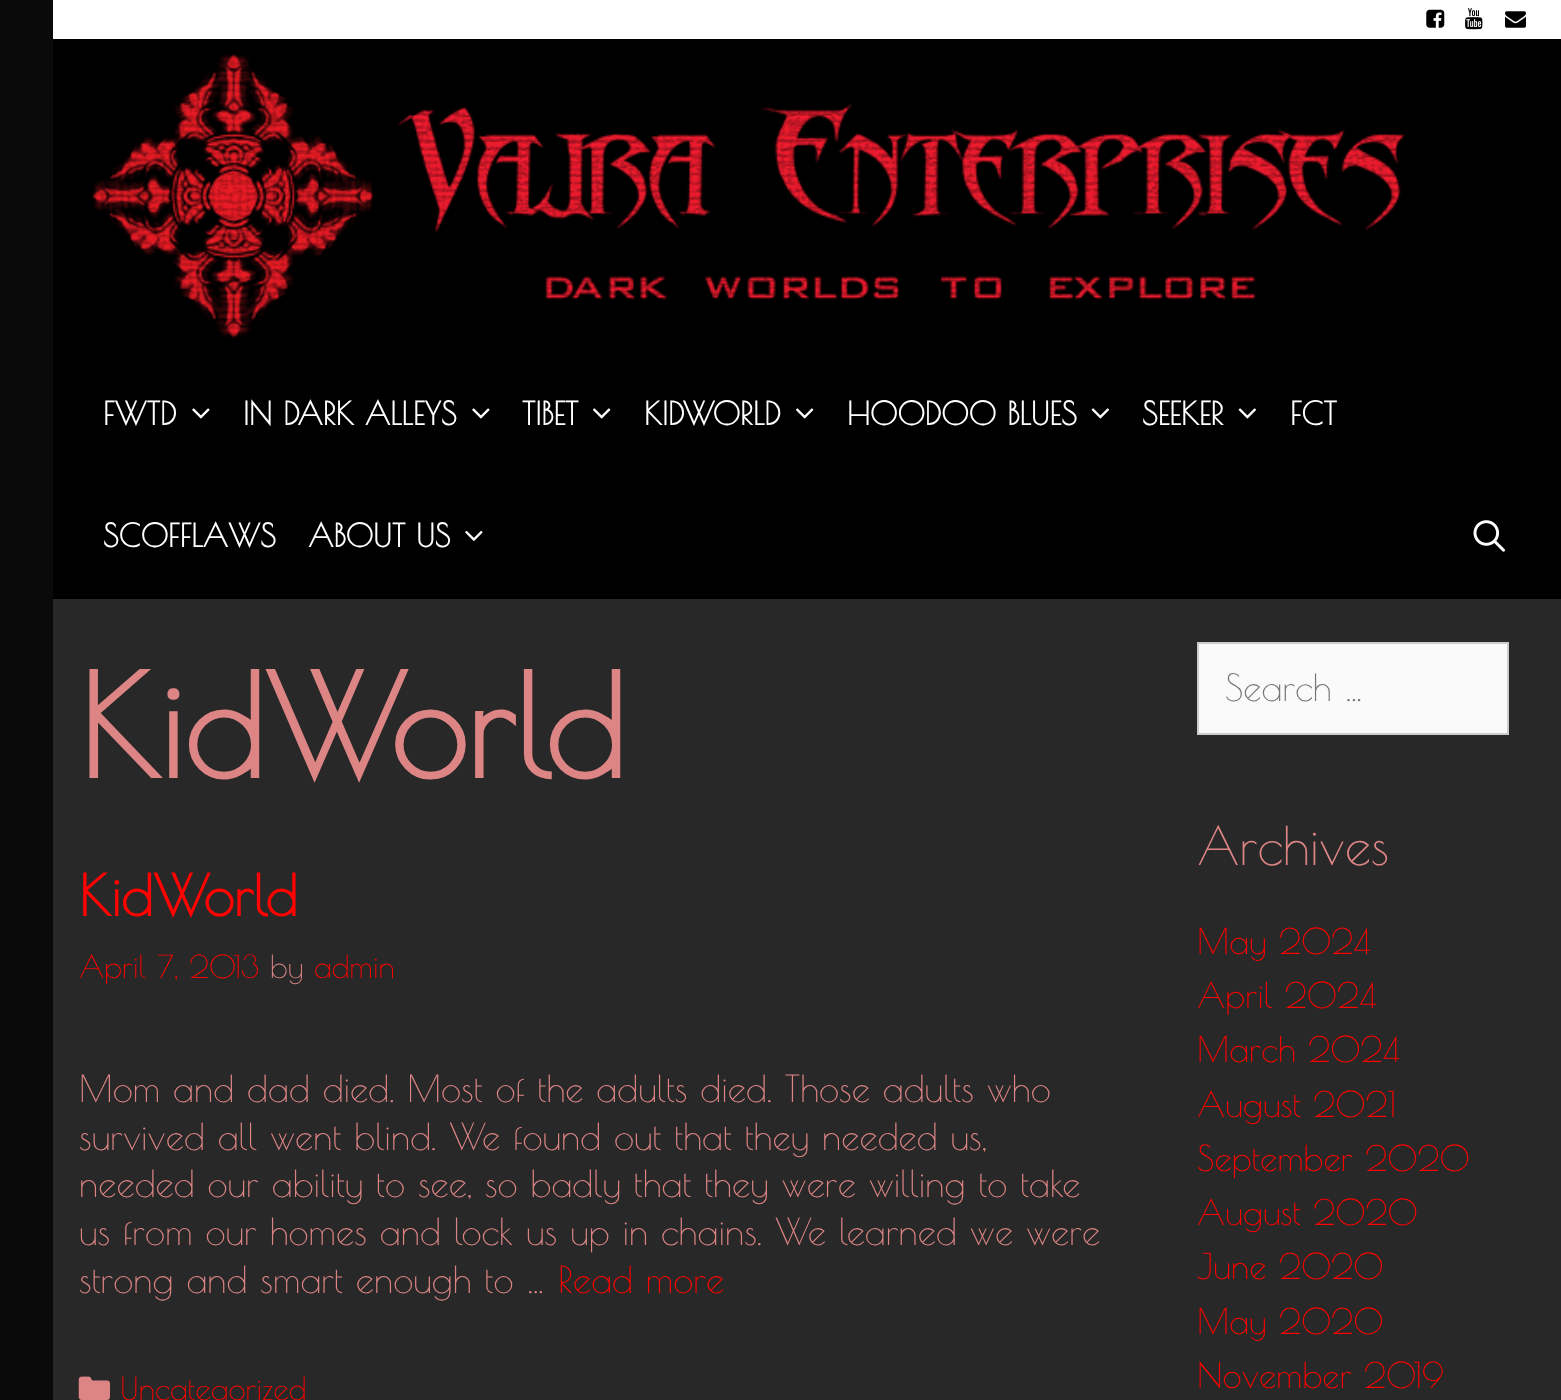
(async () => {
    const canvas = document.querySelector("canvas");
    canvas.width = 1561;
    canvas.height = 1400;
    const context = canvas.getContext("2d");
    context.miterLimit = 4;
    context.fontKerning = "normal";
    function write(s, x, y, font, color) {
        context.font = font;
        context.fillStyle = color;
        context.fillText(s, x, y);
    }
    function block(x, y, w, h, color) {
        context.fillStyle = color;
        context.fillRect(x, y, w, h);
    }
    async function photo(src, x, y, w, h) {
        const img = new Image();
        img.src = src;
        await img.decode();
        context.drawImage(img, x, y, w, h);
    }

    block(0, 0, 1561, 1400, "rgb(10, 10, 10)");
    block(53, 599, 1508, 801, "rgb(40, 40, 40)");
    block(53, 0, 1508, 39, "rgb(255, 255, 255)");
    await photo("media/1.png", 1426, 9, 19, 19);
    await photo("media/2.png", 1465, 8, 18, 22);
    await photo("media/3.png", 1505, 11, 21, 17);
    block(53, 39, 1508, 560, "rgb(0, 0, 0)");
    await photo("media/4.png", 92, 54, 1314, 285);
    write("FWTD", 103, 425, "bold 31.5px Poiret One", "rgb(255, 255, 255)");
    await photo("media/5.png", 192, 408, 18, 11);
    write("IN DARK ALLEYS", 243, 425, "bold 31.5px Poiret One", "rgb(255, 255, 255)");
    await photo("media/5.png", 472, 408, 18, 11);
    write("TIBET", 522, 425, "bold 31.5px Poiret One", "rgb(255, 255, 255)");
    await photo("media/6.png", 592, 408, 19, 11);
    write("KIDWORLD", 644, 425, "bold 31.5px Poiret One", "rgb(255, 255, 255)");
    await photo("media/6.png", 795, 408, 19, 11);
    write("HOODOO BLUES", 847, 425, "bold 31.5px Poiret One", "rgb(255, 255, 255)");
    await photo("media/7.png", 1091, 408, 19, 11);
    write("SEEKER", 1142, 425, "bold 31.5px Poiret One", "rgb(255, 255, 255)");
    await photo("media/7.png", 1238, 408, 19, 11);
    write("FCT", 1290, 425, "bold 31.5px Poiret One", "rgb(255, 255, 255)");
    write("SCOFFLAWS", 103, 547, "bold 31.5px Poiret One", "rgb(255, 255, 255)");
    write("ABOUT US", 308, 547, "bold 31.5px Poiret One", "rgb(255, 255, 255)");
    await photo("media/8.png", 465, 530, 18, 11);
    await photo("media/9.png", 1473, 520, 32, 32);
    write("KidWorld", 79, 778, "bold 140px Poiret One", "rgb(221, 133, 133)");
    write("KidWorld", 79, 916, "bold 56px Poiret One", "rgb(255, 2, 2)");
    write("April 7, 2013", 79, 978, "31.25px Poiret One", "rgb(255, 2, 2)");
    write("by", 270, 978, "31.25px Poiret One", "rgb(221, 133, 133)");
    write("admin", 314, 978, "31.25px Poiret One", "rgb(255, 2, 2)");
    write("Mom and dad died. Most of the adults died. Those adults who", 79, 1102, "36.75px Poiret One", "rgb(221, 133, 133)");
    write("survived all went blind. We found out that they needed us,", 79, 1150, "36.75px Poiret One", "rgb(221, 133, 133)");
    write("needed our ability to see, so badly that they were willing to take", 79, 1197, "36.75px Poiret One", "rgb(221, 133, 133)");
    write("us from our homes and lock us up in chains. We learned we were", 79, 1245, "36.75px Poiret One", "rgb(221, 133, 133)");
    write("strong and smart enough to …", 79, 1293, "36.75px Poiret One", "rgb(221, 133, 133)");
    write("Read more", 558, 1293, "36.75px Poiret One", "rgb(255, 2, 2)");
    await photo("media/10.png", 78, 1376, 32, 24);
    write("Uncategorized", 120, 1400, "31.25px Poiret One", "rgb(255, 2, 2)");
    context.fillStyle = "rgb(250, 250, 250)";
    context.beginPath();
    context.rect(1198, 643, 310, 91);
    context.fill();
    context.strokeStyle = "rgb(204, 204, 204)";
    context.lineWidth = 2;
    context.stroke();
    write("Search …", 1225, 701, "36.75px Poiret One", "rgb(117, 117, 117)");
    write("Archives", 1197, 865, "52.5px Poiret One", "rgb(221, 133, 133)");
    write("May 2024", 1197, 954, "35px Poiret One", "rgb(255, 2, 2)");
    write("April 2024", 1197, 1008, "35px Poiret One", "rgb(255, 2, 2)");
    write("March 2024", 1197, 1062, "35px Poiret One", "rgb(255, 2, 2)");
    write("August 2021", 1197, 1117, "35px Poiret One", "rgb(255, 2, 2)");
    write("September 2020", 1197, 1171, "35px Poiret One", "rgb(255, 2, 2)");
    write("August 2020", 1197, 1225, "35px Poiret One", "rgb(255, 2, 2)");
    write("June 2020", 1197, 1279, "35px Poiret One", "rgb(255, 2, 2)");
    write("May 2020", 1197, 1334, "35px Poiret One", "rgb(255, 2, 2)");
    write("November 2019", 1197, 1388, "35px Poiret One", "rgb(255, 2, 2)");
})();
